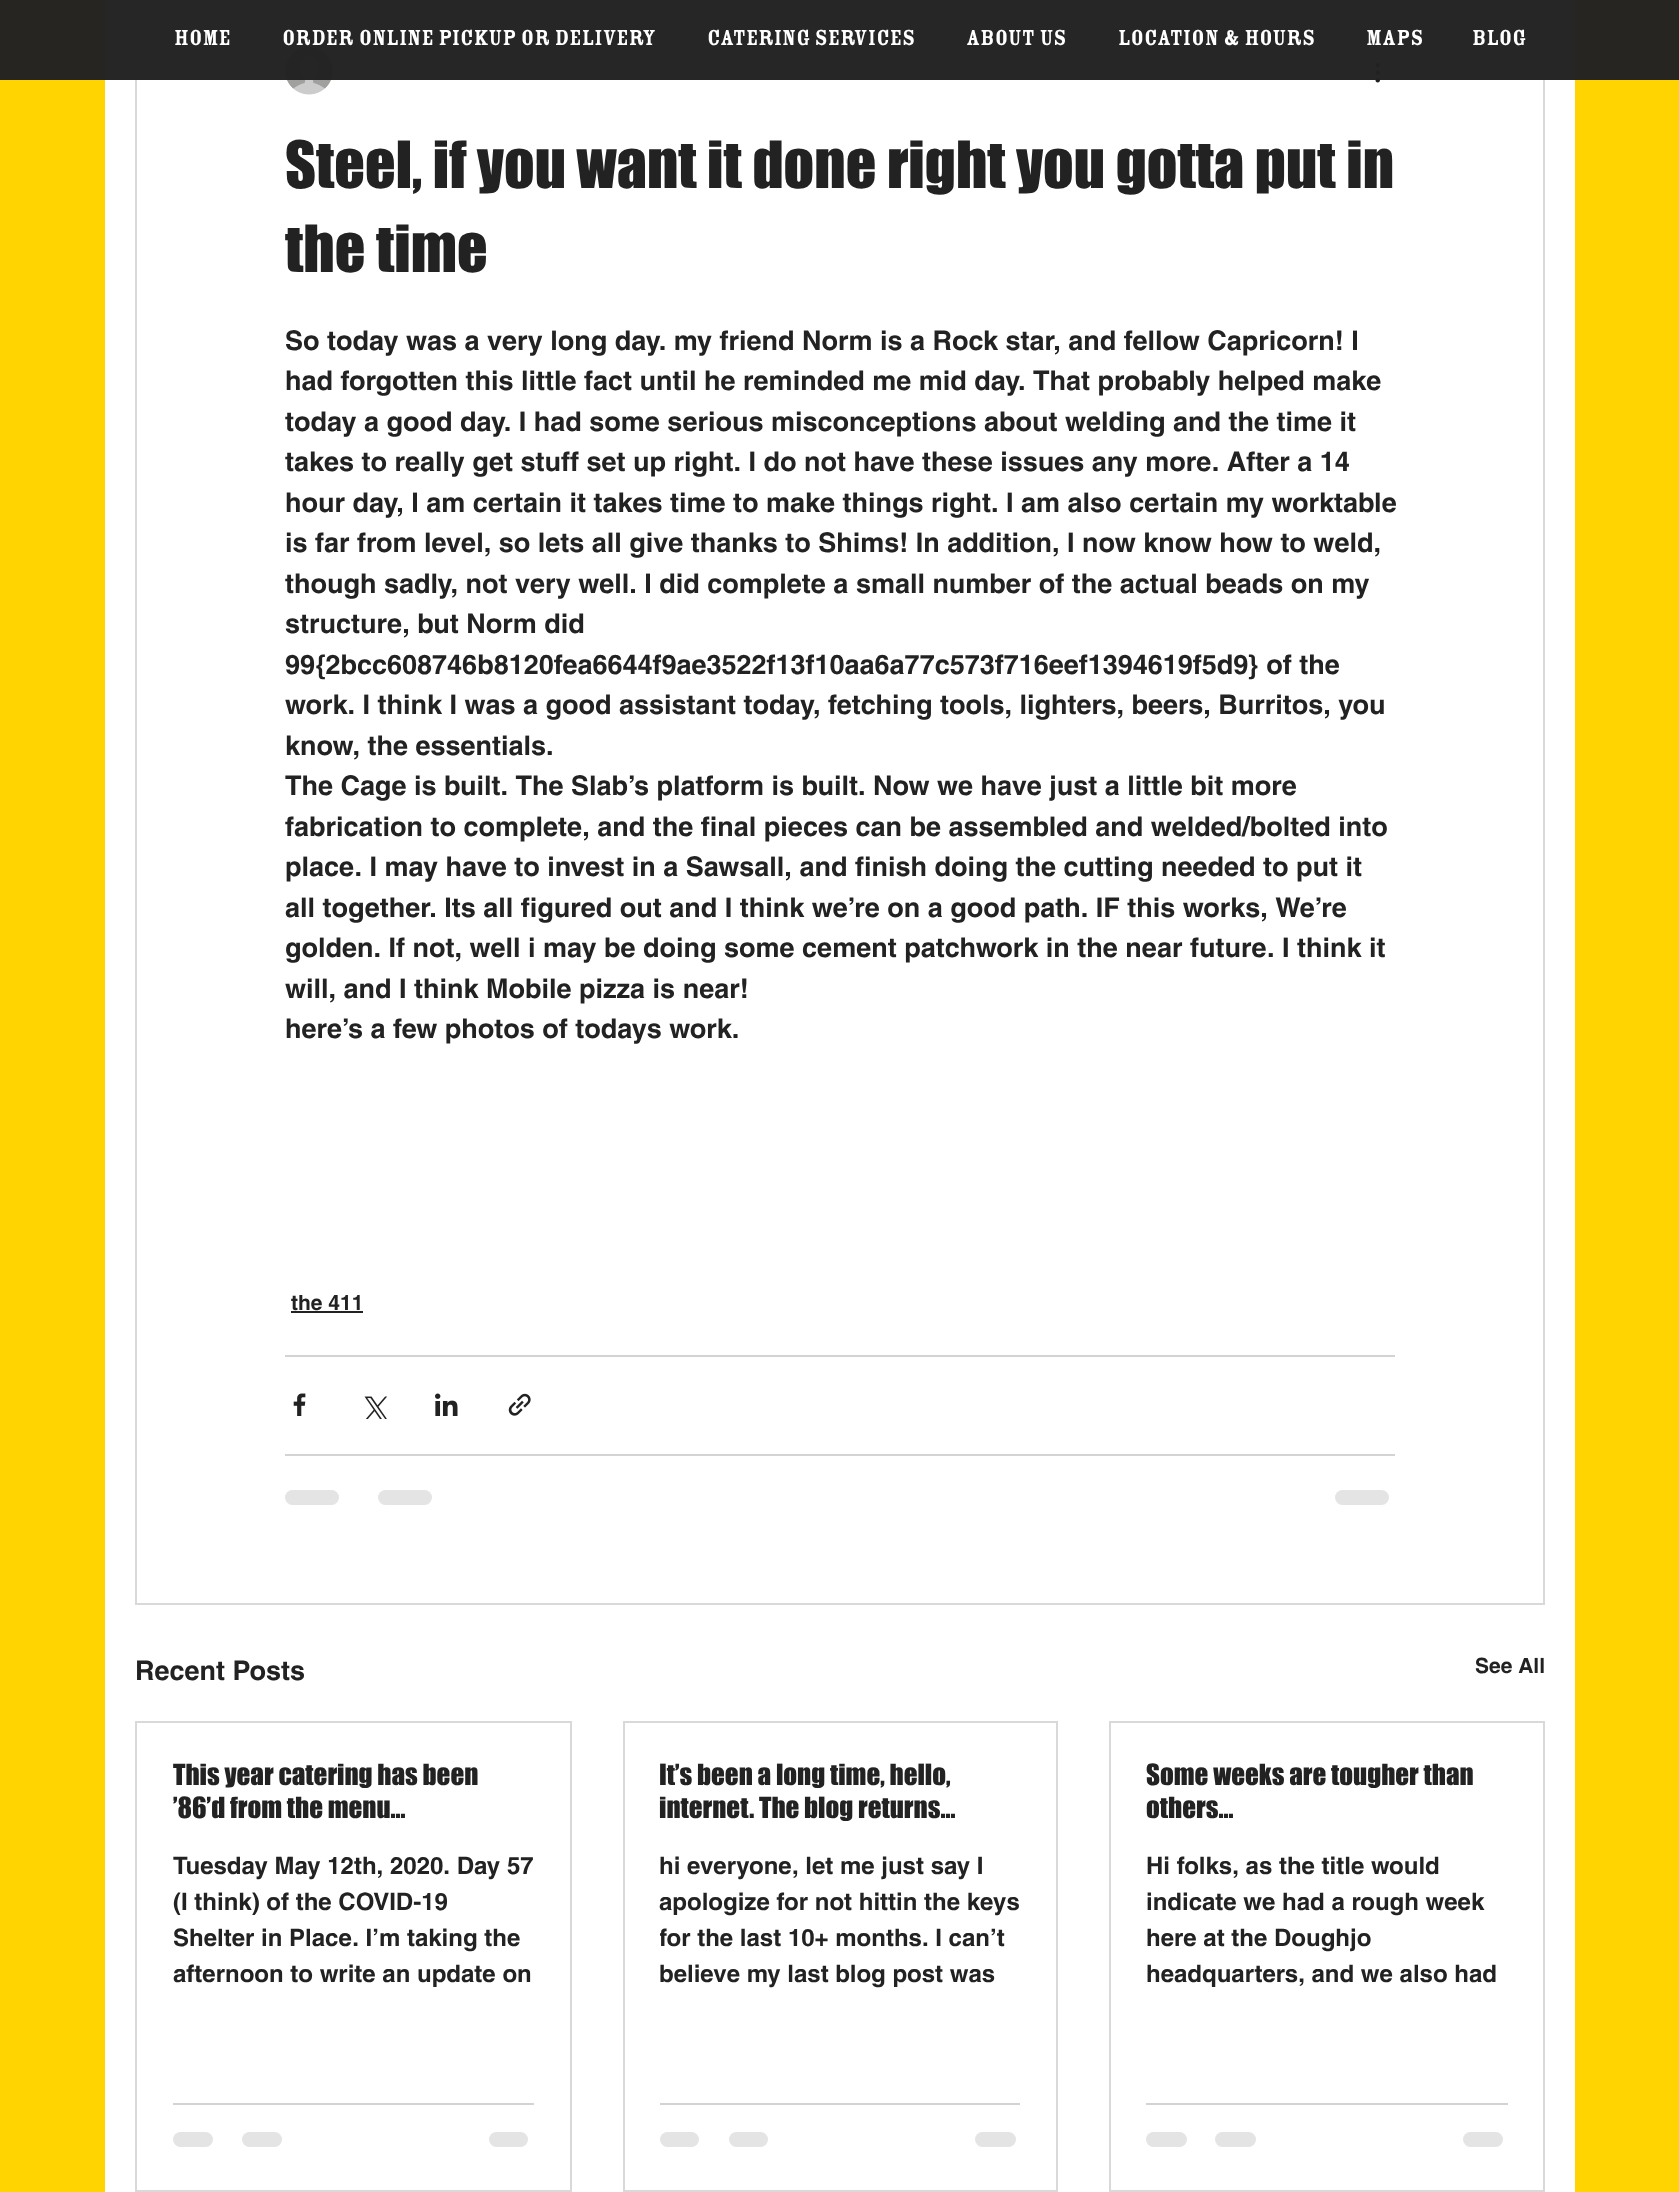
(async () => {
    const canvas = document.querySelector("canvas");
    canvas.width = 1679;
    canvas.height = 2192;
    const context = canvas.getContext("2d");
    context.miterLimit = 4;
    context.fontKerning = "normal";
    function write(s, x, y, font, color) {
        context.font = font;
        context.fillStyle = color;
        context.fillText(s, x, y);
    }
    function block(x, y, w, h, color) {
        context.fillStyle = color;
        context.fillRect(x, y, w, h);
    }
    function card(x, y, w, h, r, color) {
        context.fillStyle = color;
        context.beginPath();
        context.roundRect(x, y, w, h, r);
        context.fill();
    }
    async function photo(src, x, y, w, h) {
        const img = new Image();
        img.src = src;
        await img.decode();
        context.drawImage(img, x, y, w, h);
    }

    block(0, 0, 1679, 2192, "rgb(255, 212, 0)");
    block(105, 0, 1470, 2192, "rgb(255, 255, 255)");
    context.strokeStyle = "rgb(217, 217, 217)";
    context.lineWidth = 2;
    context.strokeRect(136, -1, 1408, 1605);
    await photo("media/1.png", 285, 47, 48, 48);
    await photo("media/2.png", 1375, 63, 5, 20);
    block(0, 0, 1679, 80, "rgba(34, 34, 34, 0.98)");
    write("Home", 174, 45, "500 24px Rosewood", "rgb(255, 255, 255)");
    write("Order Online Pickup or Delivery", 282, 45, "500 24px Rosewood", "rgb(255, 255, 255)");
    write("Catering Services", 707, 45, "500 24px Rosewood", "rgb(255, 255, 255)");
    write("About us", 966, 45, "500 24px Rosewood", "rgb(255, 255, 255)");
    write("Location & Hours", 1118, 45, "500 24px Rosewood", "rgb(255, 255, 255)");
    write("Maps", 1366, 45, "500 24px Rosewood", "rgb(255, 255, 255)");
    write("Blog", 1472, 45, "500 24px Rosewood", "rgb(255, 255, 255)");
    write("Steel, if you want it done right you gotta put in", 285, 188, "60px 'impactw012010'", "rgb(34, 34, 34)");
    write("the time", 285, 272, "60px 'impactw012010'", "rgb(34, 34, 34)");
    write("So today was a very long day. my friend Norm is a Rock star, and fellow Capricorn! I", 285, 350, "bold 27px helvetica", "rgb(34, 34, 34)");
    write("had forgotten this little fact until he reminded me mid day. That probably helped make", 285, 390, "bold 27px helvetica", "rgb(34, 34, 34)");
    write("today a good day. I had some serious misconceptions about welding and the time it", 285, 431, "bold 27px helvetica", "rgb(34, 34, 34)");
    write("takes to really get stuff set up right. I do not have these issues any more. After a 14", 285, 471, "bold 27px helvetica", "rgb(34, 34, 34)");
    write("hour day, I am certain it takes time to make things right. I am also certain my worktable", 285, 512, "bold 27px helvetica", "rgb(34, 34, 34)");
    write("is far from level, so lets all give thanks to Shims! In addition, I now know how to weld,", 285, 552, "bold 27px helvetica", "rgb(34, 34, 34)");
    write("though sadly, not very well. I did complete a small number of the actual beads on my", 285, 593, "bold 27px helvetica", "rgb(34, 34, 34)");
    write("structure, but Norm did", 285, 633, "bold 27px helvetica", "rgb(34, 34, 34)");
    write("99{2bcc608746b8120fea6644f9ae3522f13f10aa6a77c573f716eef1394619f5d9} of the", 285, 674, "bold 27px helvetica", "rgb(34, 34, 34)");
    write("work. I think I was a good assistant today, fetching tools, lighters, beers, Burritos, you", 285, 714, "bold 27px helvetica", "rgb(34, 34, 34)");
    write("know, the essentials.", 285, 755, "bold 27px helvetica", "rgb(34, 34, 34)");
    write("The Cage is built. The Slab’s platform is built. Now we have just a little bit more", 285, 795, "bold 27px helvetica", "rgb(34, 34, 34)");
    write("fabrication to complete, and the final pieces can be assembled and welded/bolted into", 285, 836, "bold 27px helvetica", "rgb(34, 34, 34)");
    write("place. I may have to invest in a Sawsall, and finish doing the cutting needed to put it", 285, 876, "bold 27px helvetica", "rgb(34, 34, 34)");
    write("all together. Its all figured out and I think we’re on a good path. IF this works, We’re", 285, 917, "bold 27px helvetica", "rgb(34, 34, 34)");
    write("golden. If not, well i may be doing some cement patchwork in the near future. I think it", 285, 957, "bold 27px helvetica", "rgb(34, 34, 34)");
    write("will, and I think Mobile pizza is near!", 285, 998, "bold 27px helvetica", "rgb(34, 34, 34)");
    write("here’s a few photos of todays work.", 285, 1038, "bold 27px helvetica", "rgb(34, 34, 34)");
    write("the 411", 291, 1310, "bold 21px helvetica", "rgb(34, 34, 34)");
    block(291, 1311, 72, 2, "rgb(34, 34, 34)");
    block(285, 1355, 1110, 2, "rgb(211, 211, 211)");
    await photo("media/3.png", 293, 1393, 13, 23);
    await photo("media/4.png", 364, 1396, 23, 23);
    await photo("media/5.png", 435, 1393, 23, 23);
    await photo("media/6.png", 508, 1393, 23, 23);
    block(285, 1454, 1110, 2, "rgb(211, 211, 211)");
    card(285, 1490, 54, 15, 7.5, "rgb(228, 228, 228)");
    card(378, 1490, 54, 15, 7.5, "rgb(228, 228, 228)");
    card(1335, 1490, 54, 15, 7.5, "rgb(228, 228, 228)");
    write("Recent Posts", 135, 1680, "bold 27px helvetica", "rgb(34, 34, 34)");
    write("See All", 1475, 1673, "bold 21px helvetica", "rgb(34, 34, 34)");
    context.strokeRect(136, 1722, 435, 469);
    context.save();
    context.beginPath();
    context.rect(173, 1758, 361, 66);
    context.clip();
    write("This year catering has been", 173, 1785, "27px 'impactw012010'", "rgb(34, 34, 34)");
    context.restore();
    write("’86’d from the menu…", 173, 1818, "27px 'impactw012010'", "rgb(34, 34, 34)");
    context.save();
    context.beginPath();
    context.rect(173, 1848, 361, 144);
    context.clip();
    write("Tuesday May 12th, 2020. Day 57", 173, 1874, "bold 24px helvetica", "rgb(34, 34, 34)");
    context.restore();
    write("(I think) of the COVID-19", 173, 1910, "bold 24px helvetica", "rgb(34, 34, 34)");
    write("Shelter in Place. I’m taking the", 173, 1946, "bold 24px helvetica", "rgb(34, 34, 34)");
    write("afternoon to write an update on", 173, 1982, "bold 24px helvetica", "rgb(34, 34, 34)");
    block(173, 2103, 361, 2, "rgb(211, 211, 211)");
    card(173, 2132, 40, 15, 7.5, "rgb(228, 228, 228)");
    card(242, 2132, 40, 15, 7.5, "rgb(228, 228, 228)");
    card(489, 2132, 39, 15, 7.5, "rgb(228, 228, 228)");
    context.strokeRect(624, 1722, 433, 469);
    write("It’s been a long time, hello,", 659, 1785, "27px 'impactw012010'", "rgb(34, 34, 34)");
    write("internet. The blog returns…", 659, 1818, "27px 'impactw012010'", "rgb(34, 34, 34)");
    write("hi everyone, let me just say I", 659, 1874, "bold 24px helvetica", "rgb(34, 34, 34)");
    write("apologize for not hittin the keys", 659, 1910, "bold 24px helvetica", "rgb(34, 34, 34)");
    context.save();
    context.beginPath();
    context.rect(660, 1848, 360, 144);
    context.clip();
    write("for the last 10+ months. I can’t", 659, 1946, "bold 24px helvetica", "rgb(34, 34, 34)");
    context.restore();
    write("believe my last blog post was", 659, 1982, "bold 24px helvetica", "rgb(34, 34, 34)");
    block(660, 2103, 360, 2, "rgb(211, 211, 211)");
    card(660, 2132, 39, 15, 7.5, "rgb(228, 228, 228)");
    card(729, 2132, 39, 15, 7.5, "rgb(228, 228, 228)");
    card(975, 2132, 41, 15, 7.5, "rgb(228, 228, 228)");
    context.strokeRect(1110, 1722, 434, 469);
    write("Some weeks are tougher than", 1146, 1785, "27px 'impactw012010'", "rgb(34, 34, 34)");
    write("others…", 1146, 1818, "27px 'impactw012010'", "rgb(34, 34, 34)");
    write("Hi folks, as the title would", 1146, 1874, "bold 24px helvetica", "rgb(34, 34, 34)");
    write("indicate we had a rough week", 1146, 1910, "bold 24px helvetica", "rgb(34, 34, 34)");
    write("here at the Doughjo", 1146, 1946, "bold 24px helvetica", "rgb(34, 34, 34)");
    write("headquarters, and we also had", 1146, 1982, "bold 24px helvetica", "rgb(34, 34, 34)");
    block(1146, 2103, 362, 2, "rgb(211, 211, 211)");
    card(1146, 2132, 41, 15, 7.5, "rgb(228, 228, 228)");
    card(1215, 2132, 41, 15, 7.5, "rgb(228, 228, 228)");
    card(1463, 2132, 40, 15, 7.5, "rgb(228, 228, 228)");
})();
